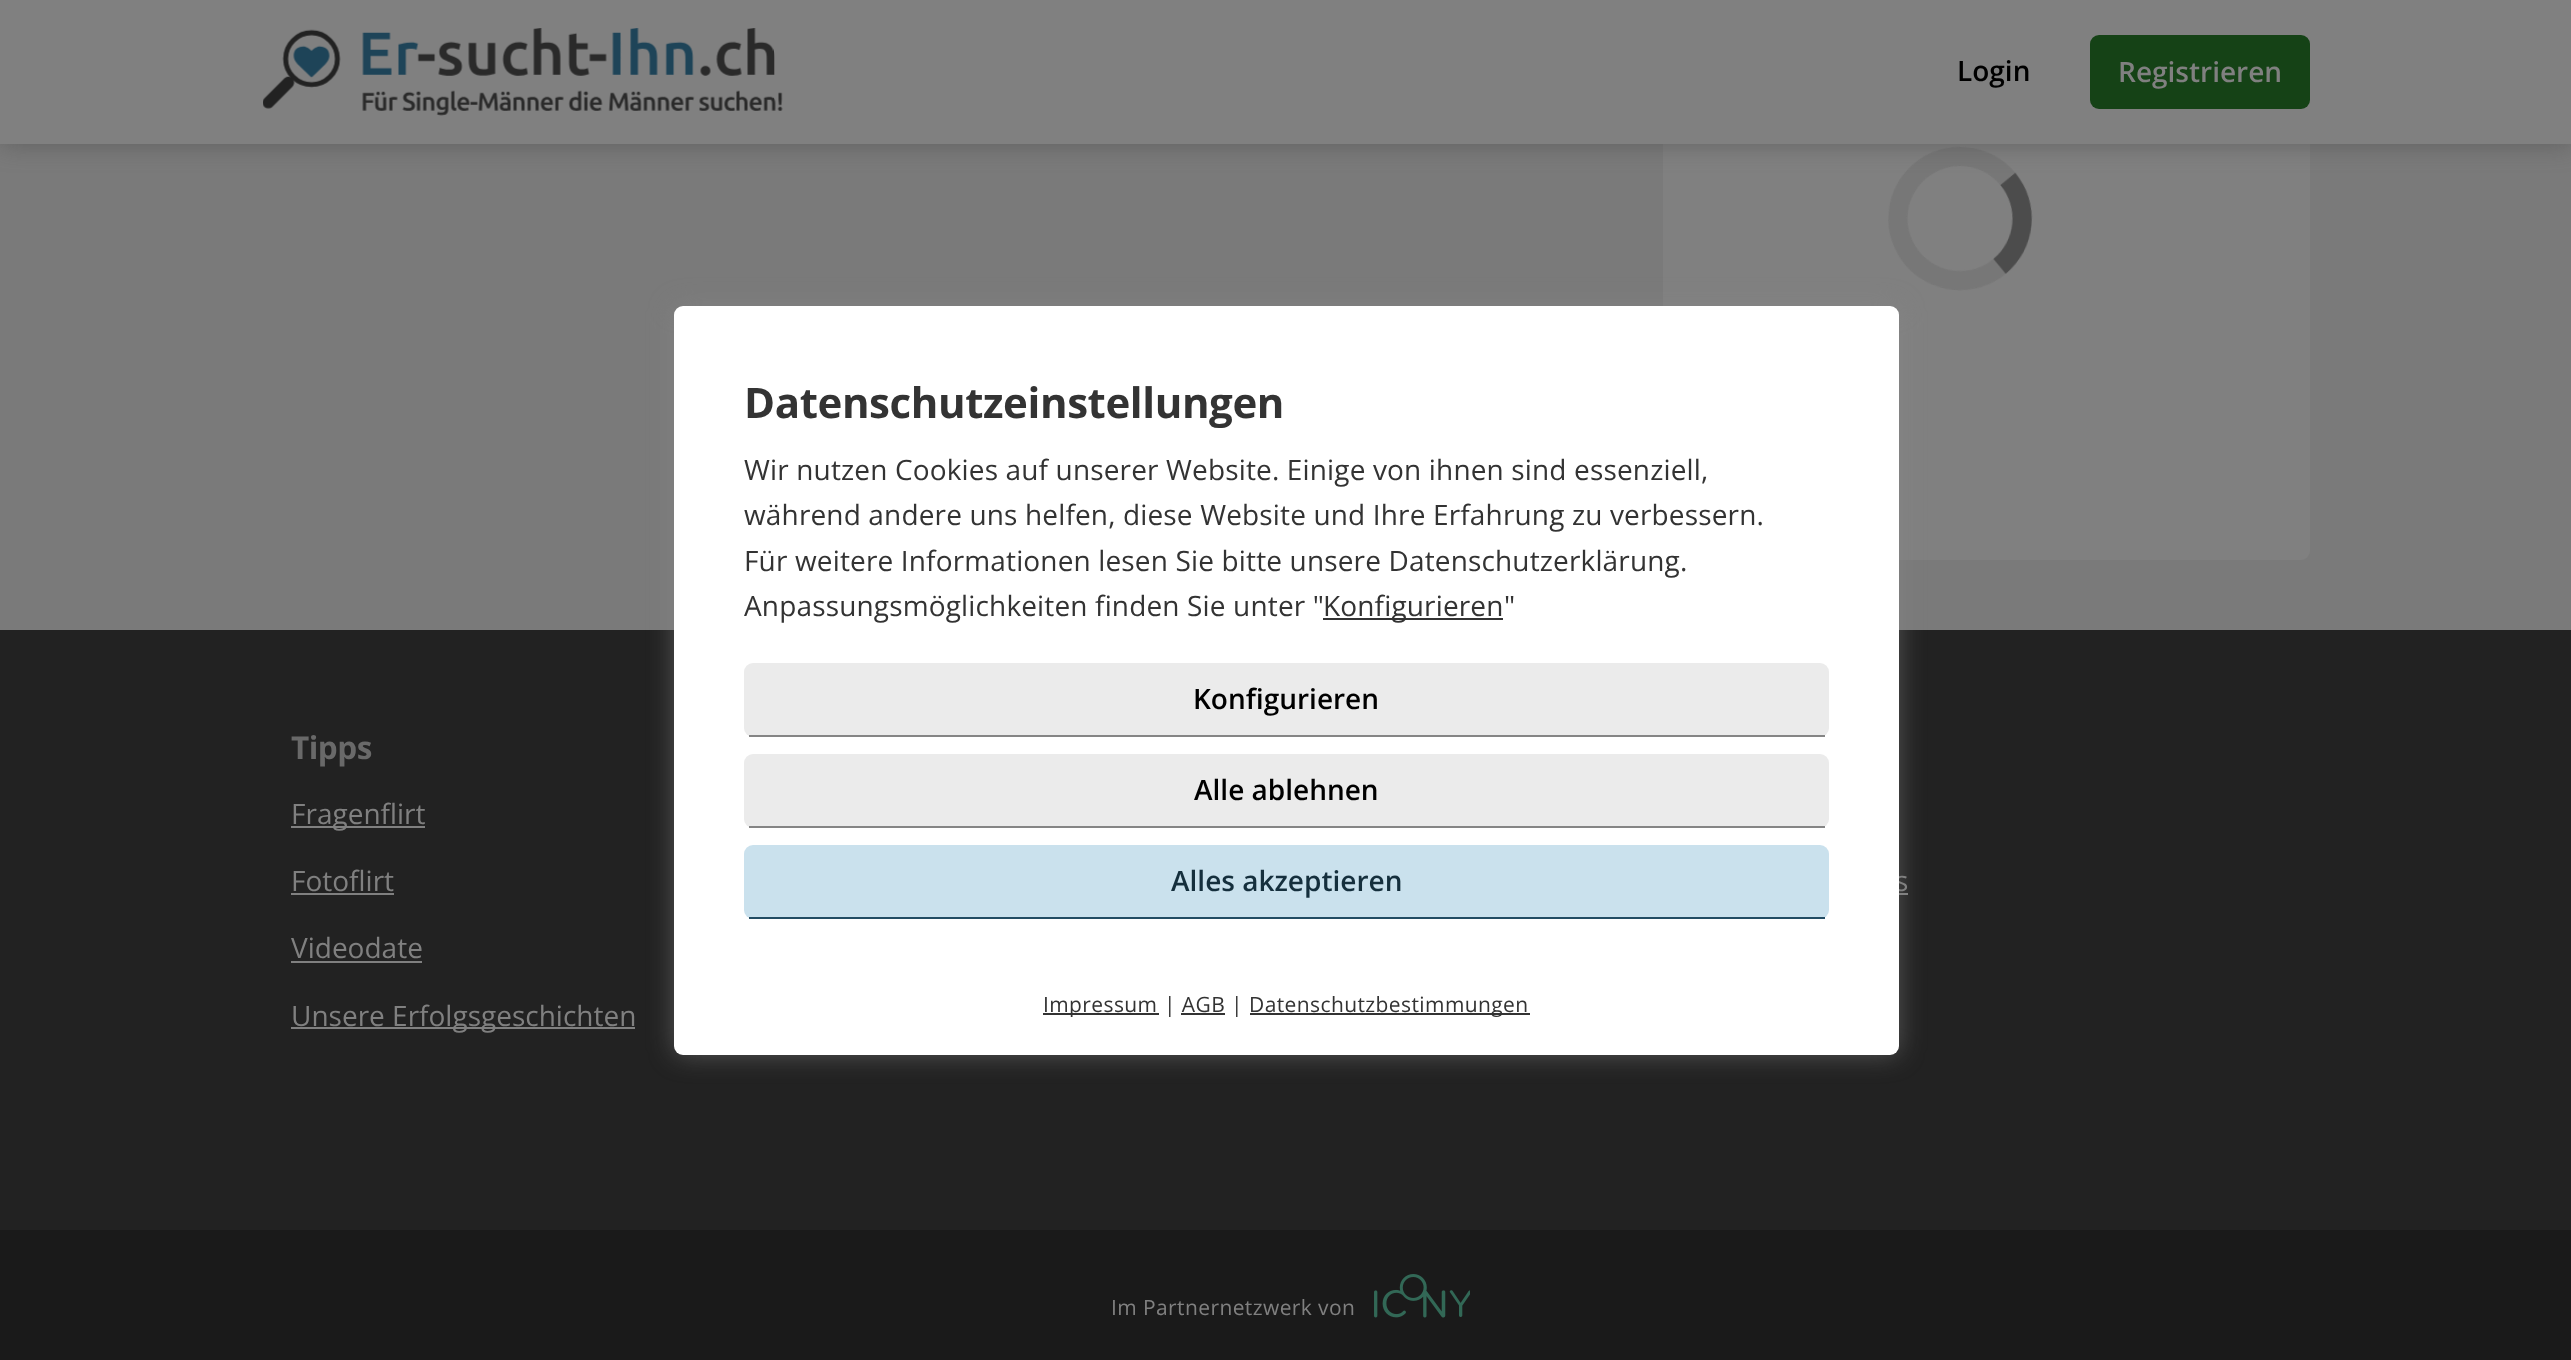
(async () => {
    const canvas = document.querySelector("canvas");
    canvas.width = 2571;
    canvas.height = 1360;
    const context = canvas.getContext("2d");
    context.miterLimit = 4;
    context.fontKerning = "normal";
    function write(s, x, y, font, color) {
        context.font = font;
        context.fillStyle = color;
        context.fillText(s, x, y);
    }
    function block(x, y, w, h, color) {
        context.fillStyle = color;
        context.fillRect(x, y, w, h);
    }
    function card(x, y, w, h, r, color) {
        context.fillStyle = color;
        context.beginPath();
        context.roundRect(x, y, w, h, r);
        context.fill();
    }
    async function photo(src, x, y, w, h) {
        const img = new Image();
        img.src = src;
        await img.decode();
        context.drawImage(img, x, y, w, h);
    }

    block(0, 0, 2571, 1360, "rgb(122, 122, 122)");
    card(1663, -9, 647, 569, 9, "rgb(128, 128, 128)");
    await photo("media/1.png", 1888, 146, 145, 145);
    context.fillStyle = "rgba(68, 68, 68, 0.5)";
    context.filter = "blur(13px)";
    context.beginPath();
    context.rect(0, 0, 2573, 144);
    context.fill();
    context.filter = "none";
    block(0, 0, 2571, 144, "rgb(128, 128, 128)");
    await photo("media/2.png", 263, 28, 520, 88);
    write("Login", 1957, 81, "600 28px Open Sans", "rgb(0, 0, 0)");
    card(2090, 35, 220, 74, 9, "rgb(21, 66, 22)");
    write("Registrieren", 2118, 82, "600 28px Open Sans", "rgb(128, 128, 128)");
    block(0, 630, 2571, 600, "rgb(34, 34, 34)");
    block(291, 1027, 344, 2, "rgb(128, 128, 128)");
    block(1899, 893, 9, 2, "rgb(128, 128, 128)");
    context.fillStyle = "rgba(136, 136, 136, 0.5)";
    context.filter = "blur(13px)";
    context.beginPath();
    context.roundRect(674, 306, 1225, 749, 9);
    context.fill();
    context.filter = "none";
    write("s", 1895, 891, "28px Open Sans", "rgb(128, 128, 128)");
    card(674, 306, 1225, 749, 9, "rgb(255, 255, 255)");
    context.letterSpacing = "-0.4px";
    write("Datenschutzeinstellungen", 744, 418, "bold 42px Open Sans", "rgb(51, 51, 51)");
    context.letterSpacing = "0.15px";
    write("Wir nutzen Cookies auf unserer Website. Einige von ihnen sind essenziell,", 744, 480, "28px Open Sans", "rgb(51, 51, 51)");
    write("während andere uns helfen, diese Website und Ihre Erfahrung zu verbessern.", 744, 525, "28px Open Sans", "rgb(51, 51, 51)");
    write("Für weitere Informationen lesen Sie bitte unsere Datenschutzerklärung.", 744, 571, "28px Open Sans", "rgb(51, 51, 51)");
    write("Anpassungsmöglichkeiten finden Sie unter \"", 744, 616, "28px Open Sans", "rgb(51, 51, 51)");
    block(1323, 618, 180, 2, "rgb(51, 51, 51)");
    write("Konfigurieren", 1323, 616, "28px Open Sans", "rgb(51, 51, 51)");
    write("\"", 1504, 616, "28px Open Sans", "rgb(51, 51, 51)");
    card(744, 663, 1085, 74, 9, "rgb(235, 235, 235)");
    block(749, 735, 1076, 2, "rgb(133, 133, 133)");
    context.letterSpacing = "0px";
    write("Konfigurieren", 1193, 709, "600 28px Open Sans", "rgb(0, 0, 0)");
    card(744, 754, 1085, 74, 9, "rgb(235, 235, 235)");
    block(749, 826, 1076, 2, "rgb(133, 133, 133)");
    write("Alle ablehnen", 1194, 800, "600 28px Open Sans", "rgb(0, 0, 0)");
    card(744, 845, 1085, 74, 9, "rgb(202, 225, 237)");
    block(749, 917, 1076, 2, "rgb(34, 76, 99)");
    write("Alles akzeptieren", 1171, 891, "600 28px Open Sans", "rgb(21, 47, 61)");
    block(1043, 1013, 116, 2, "rgb(51, 51, 51)");
    context.letterSpacing = "0.4px";
    write("Impressum", 1043, 1012, "21px Open Sans", "rgb(51, 51, 51)");
    write("| AGB", 1164, 1012, "21px Open Sans", "rgb(51, 51, 51)");
    write("|", 1231, 1012, "21px Open Sans", "rgb(51, 51, 51)");
    block(1250, 1013, 280, 2, "rgb(51, 51, 51)");
    write("Datenschutzbestimmungen", 1249, 1012, "21px Open Sans", "rgb(51, 51, 51)");
    block(1181, 1013, 44, 2, "rgb(51, 51, 51)");
    context.letterSpacing = "-0.5px";
    write("Tipps", 291, 759, "bold 31.5px Open Sans", "rgb(105, 105, 105)");
    block(291, 826, 134, 2, "rgb(128, 128, 128)");
    context.letterSpacing = "0px";
    write("Fragenflirt", 291, 824, "28px Open Sans", "rgb(128, 128, 128)");
    write("Fotoflirt", 291, 891, "28px Open Sans", "rgb(128, 128, 128)");
    block(291, 893, 103, 2, "rgb(128, 128, 128)");
    write("Videodate", 291, 958, "28px Open Sans", "rgb(128, 128, 128)");
    block(291, 961, 131, 2, "rgb(128, 128, 128)");
    write("Unsere Erfolgsgeschichten", 291, 1026, "28px Open Sans", "rgb(128, 128, 128)");
    block(0, 1230, 2571, 130, "rgb(26, 26, 26)");
    context.letterSpacing = "0.4px";
    write("Im Partnernetzwerk von", 1111, 1315, "21px Open Sans", "rgb(128, 128, 128)");
    await photo("media/3.png", 1374, 1274, 96, 44);
})();
